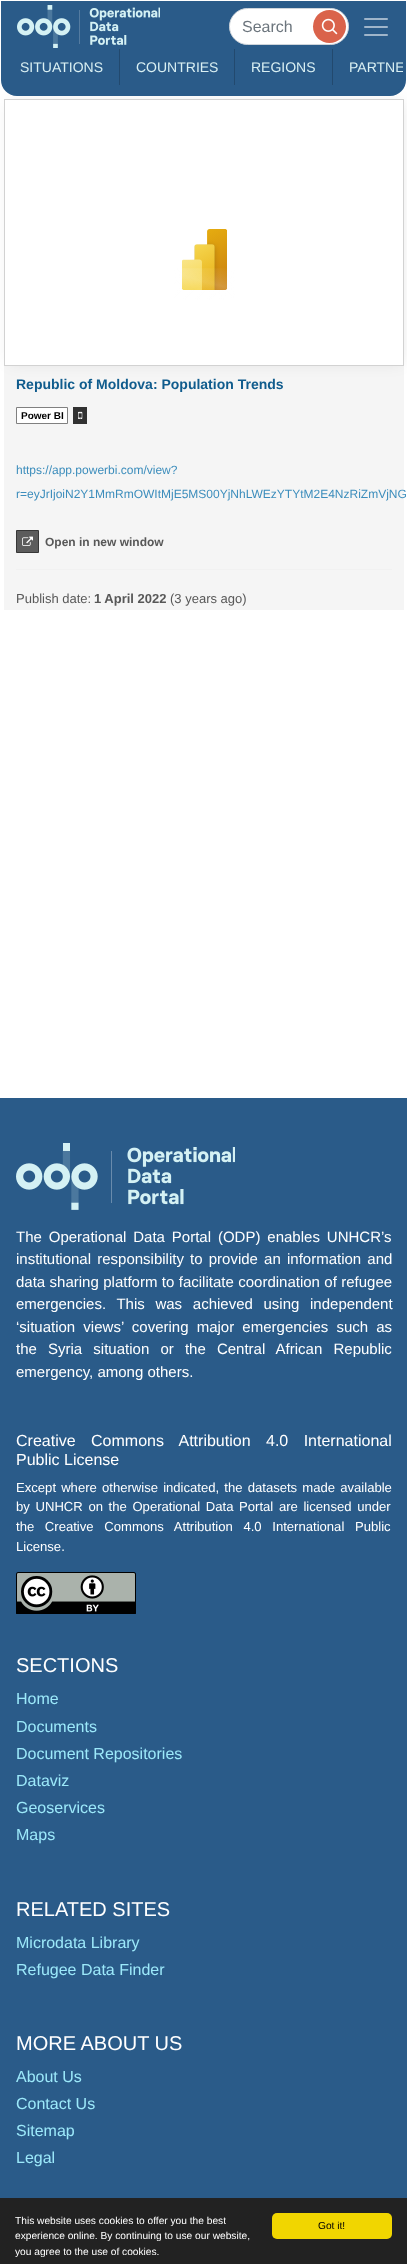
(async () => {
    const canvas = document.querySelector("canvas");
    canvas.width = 407;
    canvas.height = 2264;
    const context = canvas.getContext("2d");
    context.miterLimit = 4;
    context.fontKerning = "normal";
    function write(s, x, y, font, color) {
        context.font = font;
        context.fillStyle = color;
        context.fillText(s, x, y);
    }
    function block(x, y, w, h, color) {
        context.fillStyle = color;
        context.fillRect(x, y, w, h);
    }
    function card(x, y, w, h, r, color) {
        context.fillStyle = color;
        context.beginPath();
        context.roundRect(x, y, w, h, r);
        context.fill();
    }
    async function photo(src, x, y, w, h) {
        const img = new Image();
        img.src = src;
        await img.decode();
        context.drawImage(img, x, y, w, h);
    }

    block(0, 0, 407, 2264, "rgb(255, 255, 255)");
    block(4, 366, 400, 244, "rgb(245, 245, 245)");
    context.fillStyle = "rgba(0, 0, 0, 0.1)";
    context.filter = "blur(8px)";
    context.beginPath();
    context.rect(10, 103, 392, 259);
    context.fill();
    context.filter = "none";
    context.fillStyle = "rgb(42, 91, 137)";
    context.beginPath();
    context.roundRect(2.5, 2.5, 402, 92, [0, 0, 14.5, 14.5]);
    context.fill();
    context.strokeStyle = "rgb(42, 91, 137)";
    context.lineWidth = 3;
    context.stroke();
    await photo("media/1.png", 17, 5, 143, 43);
    context.fillStyle = "rgb(255, 255, 255)";
    context.beginPath();
    context.roundRect(229.5, 8.5, 119, 36, 18);
    context.fill();
    context.strokeStyle = "rgb(206, 212, 218)";
    context.lineWidth = 1;
    context.stroke();
    write("Search", 242, 32, "16px Liberation Sans", "rgb(108, 117, 125)");
    context.fillStyle = "rgb(218, 99, 75)";
    context.beginPath();
    context.arc(329.5, 26.5, 16.5, 0, Math.PI * 2);
    context.fill();
    await photo("media/2.png", 321, 18, 17, 17);
    await photo("media/3.png", 364, 18, 24, 18);
    write("SITUATIONS", 20, 72, "14px Liberation Sans", "rgb(218, 240, 243)");
    block(119, 49, 1, 36, "rgb(34, 73, 110)");
    write("COUNTRIES", 136, 72, "14px Liberation Sans", "rgb(218, 240, 243)");
    block(234, 49, 1, 36, "rgb(34, 73, 110)");
    write("REGIONS", 251, 72, "14px Liberation Sans", "rgb(218, 240, 243)");
    block(332, 49, 1, 36, "rgb(34, 73, 110)");
    context.save();
    context.beginPath();
    context.rect(4, 49, 399, 36);
    context.clip();
    write("PARTNE", 349, 72, "14px Liberation Sans", "rgb(218, 240, 243)");
    context.restore();
    context.strokeStyle = "rgb(210, 210, 210)";
    context.strokeRect(4.5, 99.5, 399, 266);
    await photo("media/4.png", 5, 100, 398, 265);
    write("Republic of Moldova: Population Trends", 16, 389, "bold 14px Liberation Sans", "rgb(16, 92, 141)");
    context.fillStyle = "rgb(255, 255, 255)";
    context.beginPath();
    context.rect(16.5, 407.5, 51, 16);
    context.fill();
    context.strokeStyle = "rgb(128, 128, 128)";
    context.stroke();
    write("Power BI", 21, 419, "bold 10px Liberation Sans", "rgb(0, 0, 0)");
    block(73, 407, 14, 17, "rgb(49, 49, 49)");
    await photo("media/5.png", 78, 411, 5, 8);
    write("https://app.powerbi.com/view?", 16, 474, "12px Liberation Sans", "rgb(60, 141, 188)");
    write("r=eyJrIjoiN2Y1MmRmOWItMjE5MS00YjNhLWEzYTYtM2E4NzRiZmVjNG", 16, 498, "12px Liberation Sans", "rgb(60, 141, 188)");
    context.fillStyle = "rgb(92, 92, 92)";
    context.beginPath();
    context.rect(16.5, 530.5, 22, 22);
    context.fill();
    context.strokeStyle = "rgb(55, 55, 55)";
    context.stroke();
    await photo("media/6.png", 22, 536, 11, 10);
    write("Open in new window", 45, 546, "bold 12px Liberation Sans", "rgb(88, 88, 88)");
    block(16, 569, 376, 1, "rgb(241, 241, 241)");
    write("Publish date:", 16, 603, "13px Liberation Sans", "rgb(88, 88, 88)");
    write("1 April 2022", 94, 603, "bold 13px Liberation Sans", "rgb(88, 88, 88)");
    write("(3 years ago)", 170, 603, "13px Liberation Sans", "rgb(88, 88, 88)");
    block(0, 1098, 407, 1100, "rgb(42, 91, 137)");
    await photo("media/7.png", 16, 1143, 219, 67);
    context.wordSpacing = "2.75px";
    write("The Operational Data Portal (ODP) enables UNHCR’s", 16, 1242, "15px Liberation Sans", "rgb(255, 255, 255)");
    context.wordSpacing = "2px";
    write("institutional responsibility to provide an information and", 16, 1264, "15px Liberation Sans", "rgb(255, 255, 255)");
    context.wordSpacing = "0.25px";
    write("data sharing platform to facilitate coordination of refugee", 16, 1287, "15px Liberation Sans", "rgb(255, 255, 255)");
    context.wordSpacing = "6.5px";
    write("emergencies. This was achieved using independent", 16, 1309, "15px Liberation Sans", "rgb(255, 255, 255)");
    context.wordSpacing = "4px";
    write("‘situation views’ covering major emergencies such as", 16, 1332, "15px Liberation Sans", "rgb(255, 255, 255)");
    context.wordSpacing = "7px";
    write("the Syria situation or the Central African Republic", 16, 1354, "15px Liberation Sans", "rgb(255, 255, 255)");
    context.wordSpacing = "0px";
    write("emergency, among others.", 16, 1377, "15px Liberation Sans", "rgb(255, 255, 255)");
    context.wordSpacing = "11px";
    write("Creative Commons Attribution 4.0 International", 16, 1446, "16px Liberation Sans", "rgb(255, 255, 255)");
    context.wordSpacing = "0px";
    write("Public License", 16, 1465, "16px Liberation Sans", "rgb(255, 255, 255)");
    context.wordSpacing = "1.5px";
    write("Except where otherwise indicated, the datasets made available", 16, 1492, "13.1px Liberation Sans", "rgb(255, 255, 255)");
    context.wordSpacing = "2px";
    write("by UNHCR on the Operational Data Portal are licensed under", 16, 1511, "13.1px Liberation Sans", "rgb(255, 255, 255)");
    context.wordSpacing = "7px";
    write("the Creative Commons Attribution 4.0 International Public", 16, 1531, "13.1px Liberation Sans", "rgb(255, 255, 255)");
    context.wordSpacing = "0px";
    write("License.", 16, 1551, "13.1px Liberation Sans", "rgb(255, 255, 255)");
    await photo("media/8.png", 16, 1572, 120, 42);
    write("SECTIONS", 16, 1672, "20px Liberation Sans", "rgb(255, 255, 255)");
    write("Home", 16, 1704, "16px Liberation Sans", "rgb(156, 233, 250)");
    write("Documents", 16, 1732, "16px Liberation Sans", "rgb(156, 233, 250)");
    write("Document Repositories", 16, 1759, "16px Liberation Sans", "rgb(156, 233, 250)");
    write("Dataviz", 16, 1786, "16px Liberation Sans", "rgb(156, 233, 250)");
    write("Geoservices", 16, 1813, "16px Liberation Sans", "rgb(156, 233, 250)");
    write("Maps", 16, 1840, "16px Liberation Sans", "rgb(156, 233, 250)");
    write("RELATED SITES", 16, 1916, "20px Liberation Sans", "rgb(255, 255, 255)");
    write("Microdata Library", 16, 1948, "16px Liberation Sans", "rgb(156, 233, 250)");
    write("Refugee Data Finder", 16, 1975, "16px Liberation Sans", "rgb(156, 233, 250)");
    write("MORE ABOUT US", 16, 2050, "20px Liberation Sans", "rgb(255, 255, 255)");
    write("About Us", 16, 2082, "16px Liberation Sans", "rgb(156, 233, 250)");
    write("Contact Us", 16, 2109, "16px Liberation Sans", "rgb(156, 233, 250)");
    write("Sitemap", 16, 2136, "16px Liberation Sans", "rgb(156, 233, 250)");
    write("Legal", 16, 2163, "16px Liberation Sans", "rgb(156, 233, 250)");
    block(0, 2198, 407, 66, "rgb(34, 34, 34)");
    write("This website uses cookies to offer you the best", 15, 2224, "10.2px Liberation Sans", "rgb(255, 255, 255)");
    write("experience online. By continuing to use our website,", 15, 2239, "10.2px Liberation Sans", "rgb(255, 255, 255)");
    write("you agree to the use of cookies.", 15, 2255, "10.2px Liberation Sans", "rgb(255, 255, 255)");
    card(272, 2213, 120, 26, 5, "rgb(241, 214, 0)");
    write("Got it!", 318, 2229, "10.2px Liberation Sans", "rgb(0, 0, 0)");
})();
